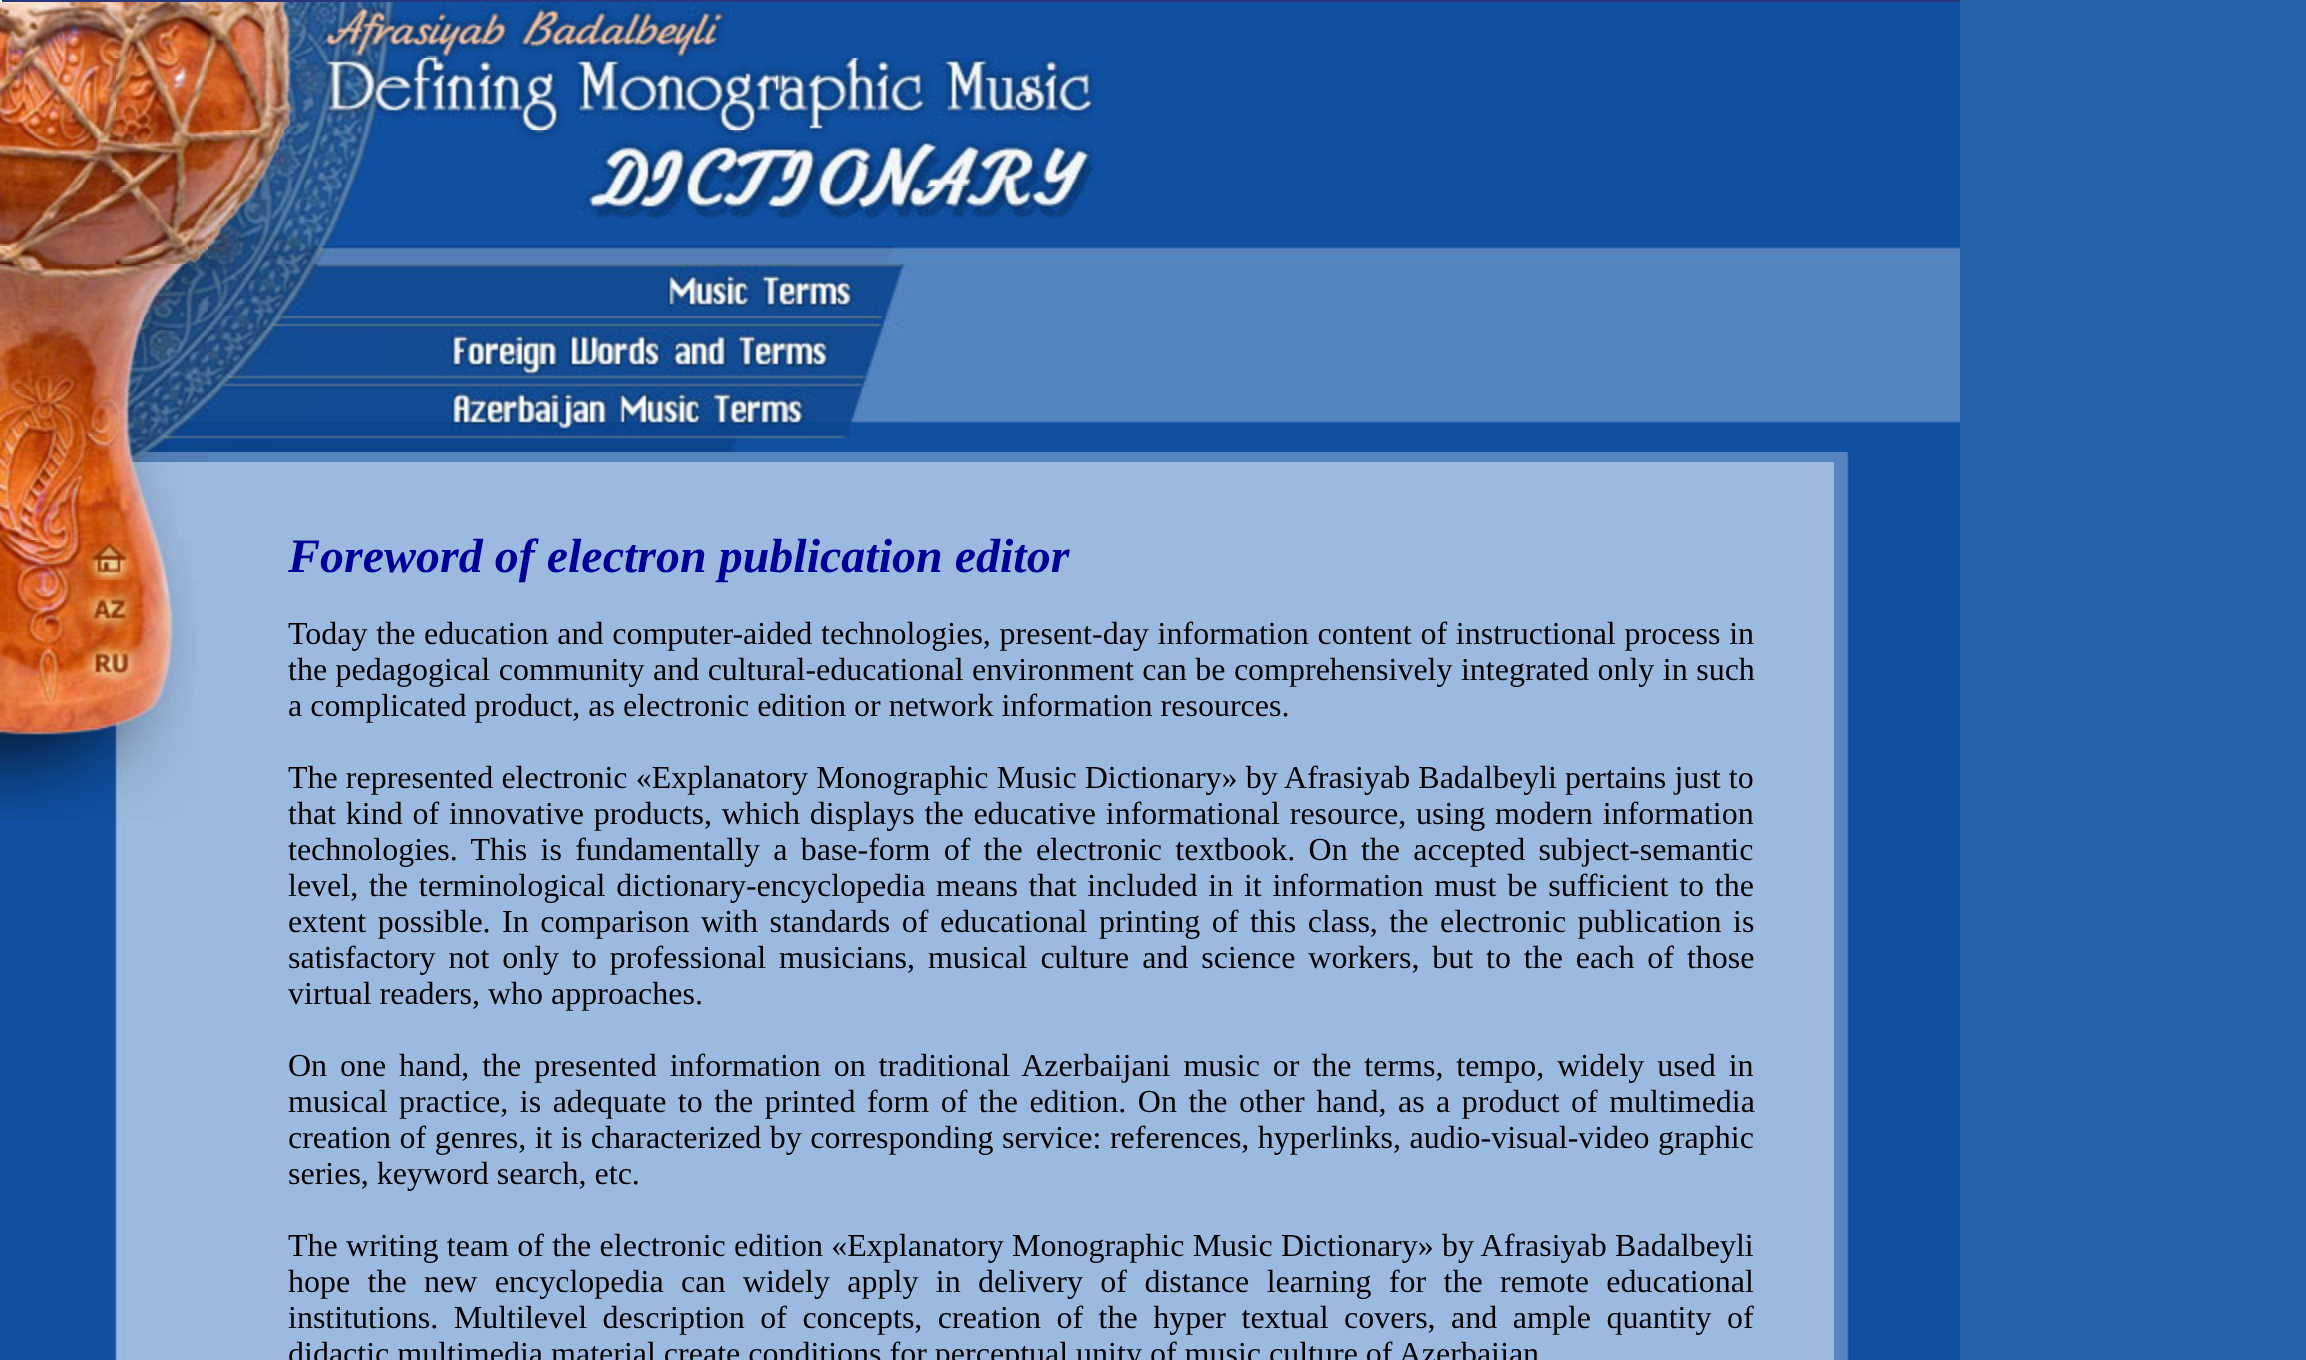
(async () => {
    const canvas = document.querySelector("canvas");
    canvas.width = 2306;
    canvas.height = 1360;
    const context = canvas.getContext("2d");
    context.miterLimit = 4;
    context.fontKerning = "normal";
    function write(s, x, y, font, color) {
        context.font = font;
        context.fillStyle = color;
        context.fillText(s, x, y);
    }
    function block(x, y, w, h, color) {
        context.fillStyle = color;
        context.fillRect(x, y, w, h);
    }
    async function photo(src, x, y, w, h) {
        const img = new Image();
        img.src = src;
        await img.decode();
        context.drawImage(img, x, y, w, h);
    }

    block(0, 0, 2306, 1360, "rgb(39, 99, 171)");
    block(0, 2, 1960, 1358, "rgb(15, 80, 162)");
    block(0, 0, 1960, 2, "rgb(40, 55, 125)");
    block(0, 0, 2, 2, "rgb(255, 255, 255)");
    await photo("media/1.png", 0, 2, 116, 56);
    await photo("media/2.png", 116, 2, 92, 56);
    await photo("media/3.png", 208, 2, 528, 56);
    await photo("media/4.png", 0, 58, 116, 72);
    await photo("media/5.png", 116, 58, 92, 72);
    await photo("media/6.png", 208, 58, 568, 72);
    await photo("media/7.png", 776, 58, 320, 72);
    await photo("media/8.png", 0, 130, 116, 56);
    await photo("media/9.png", 116, 130, 92, 56);
    await photo("media/10.png", 208, 130, 568, 56);
    await photo("media/11.png", 776, 130, 320, 56);
    await photo("media/12.png", 0, 186, 116, 36);
    await photo("media/13.png", 116, 186, 92, 36);
    await photo("media/14.png", 208, 186, 568, 36);
    await photo("media/15.png", 776, 186, 311, 33);
    await photo("media/16.png", 0, 222, 116, 24);
    await photo("media/17.png", 116, 222, 92, 24);
    await photo("media/18.png", 208, 222, 136, 24);
    await photo("media/19.png", 0, 246, 116, 18);
    await photo("media/20.png", 116, 246, 92, 18);
    await photo("media/21.png", 208, 246, 568, 18);
    await photo("media/22.png", 904, 246, 192, 18);
    await photo("media/23.png", 776, 246, 128, 18);
    await photo("media/24.png", 1096, 246, 864, 18);
    await photo("media/25.png", 0, 264, 116, 52);
    await photo("media/26.png", 116, 264, 92, 52);
    await photo("media/27.png", 208, 264, 172, 52);
    block(908, 264, 1052, 52, "rgb(84, 133, 192)");
    await photo("media/28.png", 380, 264, 528, 52);
    await photo("media/29.png", 0, 316, 116, 14);
    await photo("media/30.png", 116, 316, 794, 14);
    block(910, 316, 1050, 14, "rgb(84, 133, 192)");
    await photo("media/31.png", 0, 330, 116, 44);
    await photo("media/32.png", 116, 330, 92, 44);
    await photo("media/33.png", 208, 330, 172, 44);
    block(891, 330, 1069, 44, "rgb(84, 133, 192)");
    await photo("media/34.png", 380, 330, 511, 44);
    await photo("media/35.png", 0, 374, 116, 16);
    await photo("media/36.png", 116, 374, 794, 16);
    block(910, 374, 1050, 16, "rgb(84, 133, 192)");
    await photo("media/37.png", 0, 390, 116, 44);
    await photo("media/38.png", 116, 390, 92, 44);
    await photo("media/39.png", 208, 390, 702, 44);
    await photo("media/40.png", 910, 390, 1050, 33);
    await photo("media/41.png", 0, 434, 116, 18);
    await photo("media/42.png", 116, 434, 736, 18);
    await photo("media/43.png", 0, 452, 116, 10);
    await photo("media/44.png", 116, 452, 92, 10);
    block(208, 452, 1626, 10, "rgb(84, 133, 192)");
    await photo("media/45.png", 1834, 452, 16, 10);
    await photo("media/46.png", 115, 462, 93, 898);
    await photo("media/47.png", 0, 462, 177, 78);
    await photo("media/48.png", 0, 540, 192, 40);
    await photo("media/49.png", 0, 580, 197, 52);
    await photo("media/50.png", 0, 632, 197, 54);
    await photo("media/51.png", 0, 686, 193, 134);
    block(208, 462, 1626, 898, "rgb(156, 186, 224)");
    write("Foreword of electron publication editor", 288, 572, "italic bold 48px Liberation Serif", "rgb(0, 0, 153)");
    context.wordSpacing = "0.75px";
    write("Today the education and computer-aided technologies, present-day information content of instructional process in", 288, 644, "32px Liberation Serif", "rgb(0, 0, 0)");
    context.wordSpacing = "0.5px";
    write("the pedagogical community and cultural-educational environment can be comprehensively integrated only in such", 288, 680, "32px Liberation Serif", "rgb(0, 0, 0)");
    context.wordSpacing = "0px";
    write("a complicated product, as electronic edition or network information resources.", 288, 716, "32px Liberation Serif", "rgb(0, 0, 0)");
    context.wordSpacing = "0.1px";
    write("The represented electronic «Explanatory Monographic Music Dictionary» by Afrasiyab Badalbeyli pertains just to", 288, 788, "32px Liberation Serif", "rgb(0, 0, 0)");
    context.wordSpacing = "1.8px";
    write("that kind of innovative products, which displays the educative informational resource, using modern information", 288, 824, "32px Liberation Serif", "rgb(0, 0, 0)");
    context.wordSpacing = "5.25px";
    write("technologies. This is fundamentally a base-form of the electronic textbook. On the accepted subject-semantic", 288, 860, "32px Liberation Serif", "rgb(0, 0, 0)");
    context.wordSpacing = "2.75px";
    write("level, the terminological dictionary-encyclopedia means that included in it information must be sufficient to the", 288, 896, "32px Liberation Serif", "rgb(0, 0, 0)");
    context.wordSpacing = "3.5px";
    write("extent possible. In comparison with standards of educational printing of this class, the electronic publication is", 288, 932, "32px Liberation Serif", "rgb(0, 0, 0)");
    context.wordSpacing = "4.9px";
    write("satisfactory not only to professional musicians, musical culture and science workers, but to the each of those", 288, 968, "32px Liberation Serif", "rgb(0, 0, 0)");
    context.wordSpacing = "0px";
    write("virtual readers, who approaches.", 288, 1004, "32px Liberation Serif", "rgb(0, 0, 0)");
    context.wordSpacing = "4.9px";
    write("On one hand, the presented information on traditional Azerbaijani music or the terms, tempo, widely used in", 288, 1076, "32px Liberation Serif", "rgb(0, 0, 0)");
    context.wordSpacing = "3.5px";
    write("musical practice, is adequate to the printed form of the edition. On the other hand, as a product of multimedia", 288, 1112, "32px Liberation Serif", "rgb(0, 0, 0)");
    context.wordSpacing = "0.5px";
    write("creation of genres, it is characterized by corresponding service: references, hyperlinks, audio-visual-video graphic", 288, 1148, "32px Liberation Serif", "rgb(0, 0, 0)");
    context.wordSpacing = "0px";
    write("series, keyword search, etc.", 288, 1184, "32px Liberation Serif", "rgb(0, 0, 0)");
    context.wordSpacing = "0.3px";
    write("The writing team of the electronic edition «Explanatory Monographic Music Dictionary» by Afrasiyab Badalbeyli", 288, 1256, "32px Liberation Serif", "rgb(0, 0, 0)");
    context.wordSpacing = "9.4px";
    write("hope the new encyclopedia can widely apply in delivery of distance learning for the remote educational", 288, 1292, "32px Liberation Serif", "rgb(0, 0, 0)");
    context.wordSpacing = "7.5px";
    write("institutions. Multilevel description of concepts, creation of the hyper textual covers, and ample quantity of", 288, 1328, "32px Liberation Serif", "rgb(0, 0, 0)");
    context.wordSpacing = "0px";
    write("didactic multimedia material create conditions for perceptual unity of music culture of Azerbaijan", 288, 1364, "32px Liberation Serif", "rgb(0, 0, 0)");
    await photo("media/52.png", 1834, 462, 16, 898);
})();
